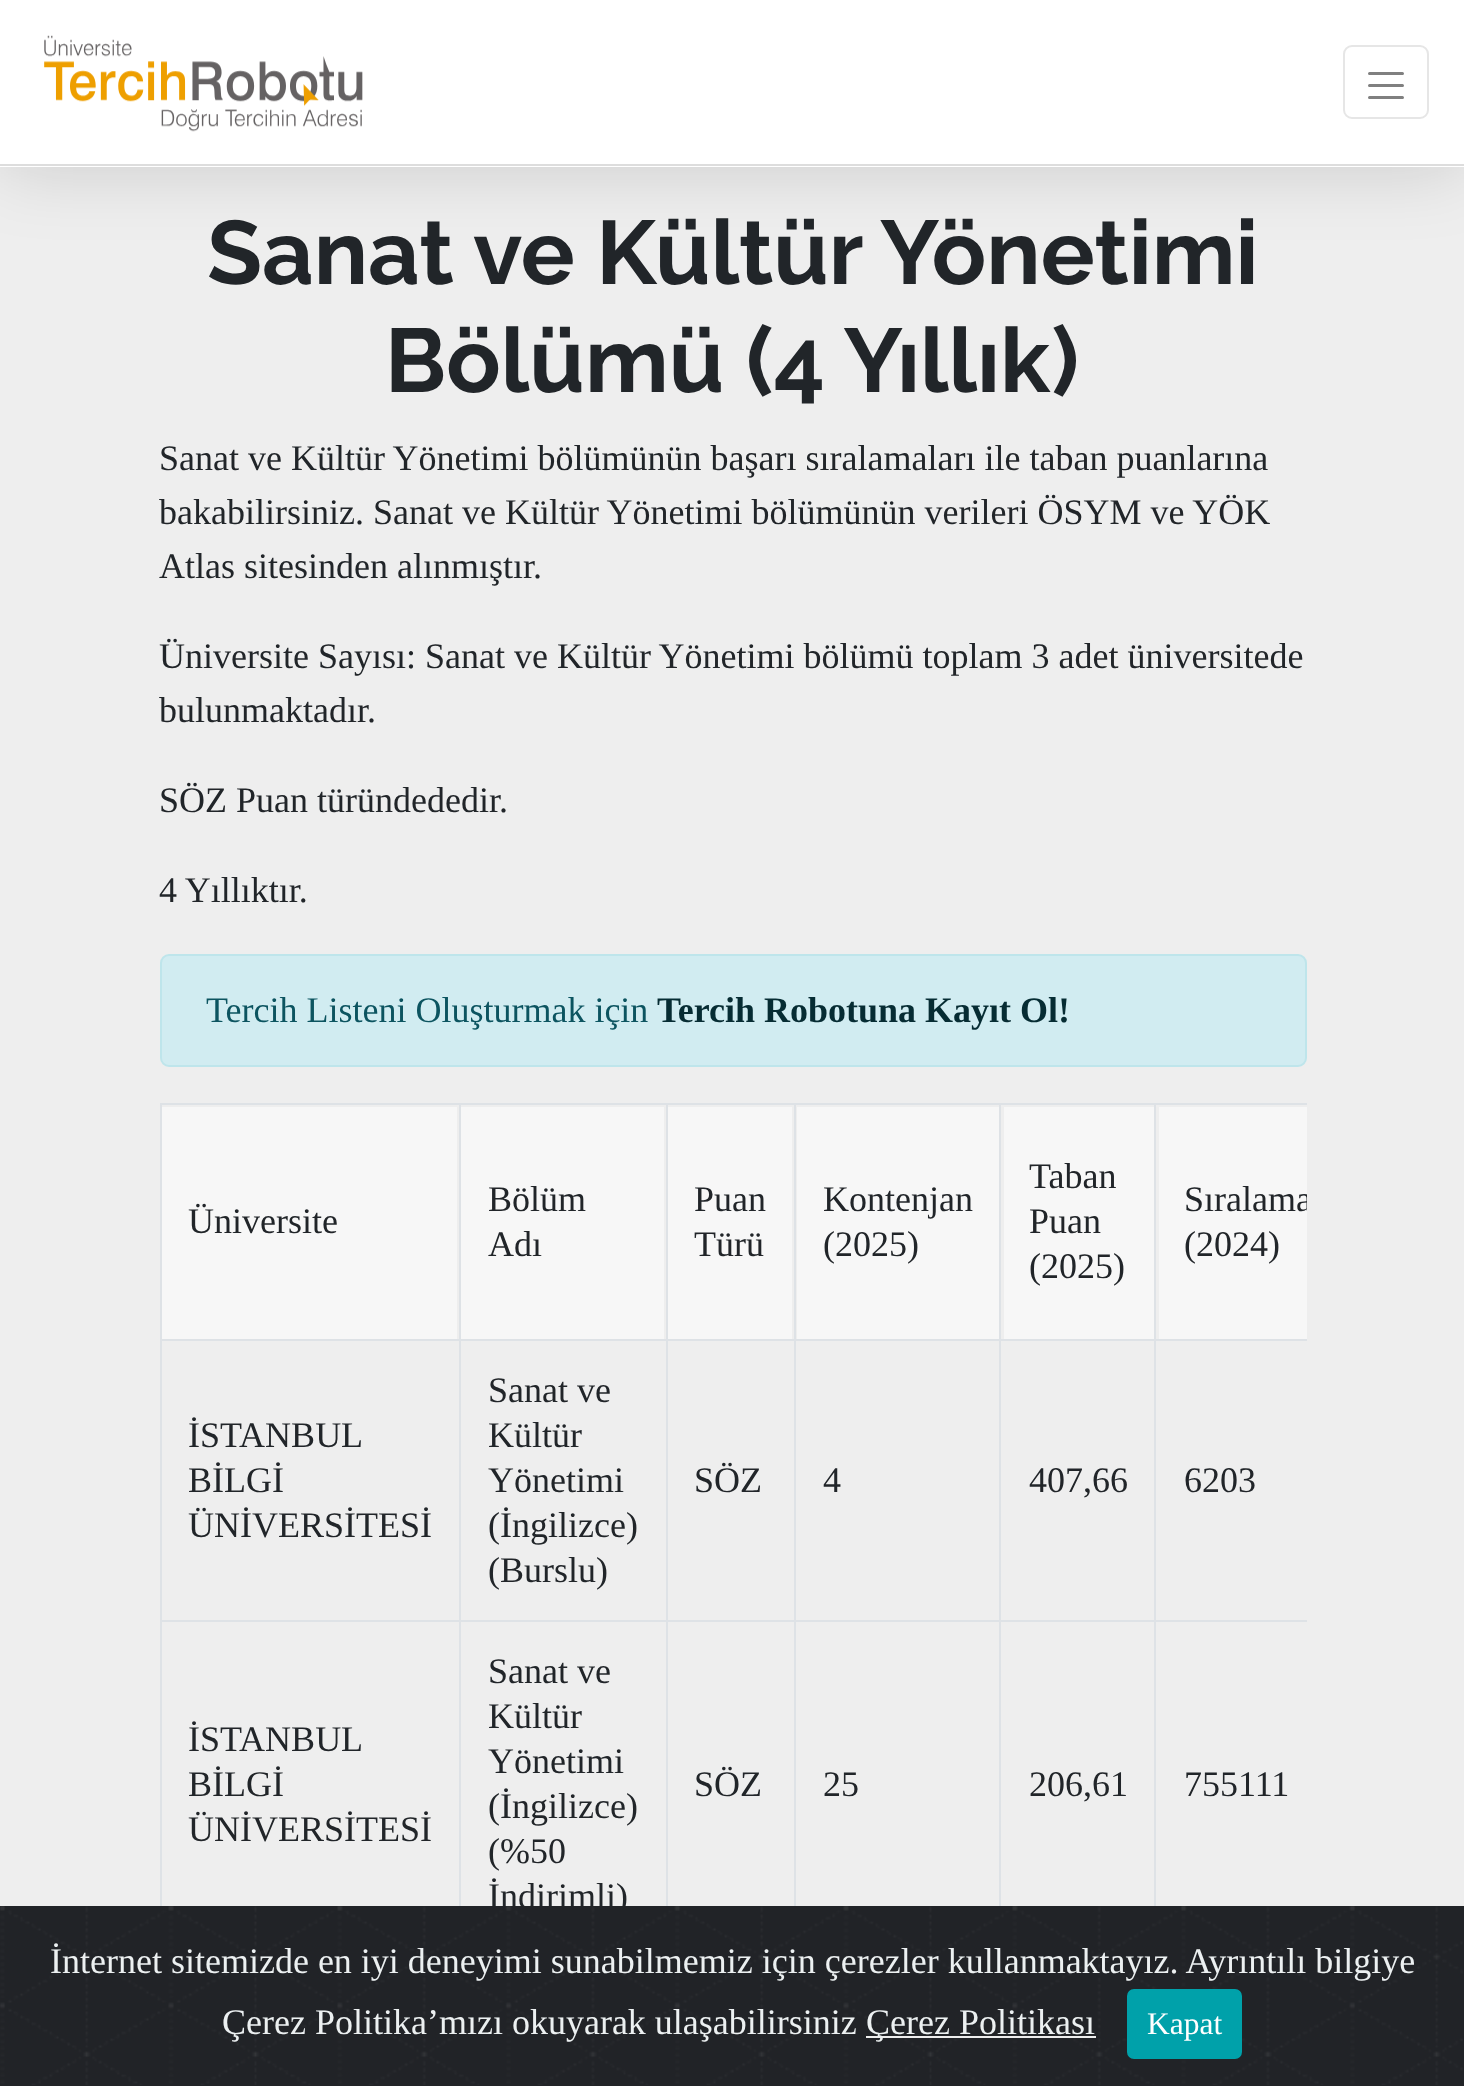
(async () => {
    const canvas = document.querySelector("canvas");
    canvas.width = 1464;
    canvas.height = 2086;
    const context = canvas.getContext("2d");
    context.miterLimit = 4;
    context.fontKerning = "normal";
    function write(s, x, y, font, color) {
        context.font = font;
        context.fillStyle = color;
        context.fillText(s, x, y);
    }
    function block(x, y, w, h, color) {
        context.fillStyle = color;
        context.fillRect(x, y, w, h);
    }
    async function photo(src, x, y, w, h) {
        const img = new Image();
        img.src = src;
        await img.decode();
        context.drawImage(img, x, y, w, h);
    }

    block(0, 0, 1464, 2086, "rgb(238, 238, 238)");
    context.fillStyle = "rgba(0, 0, 0, 0.15)";
    context.filter = "blur(36px)";
    context.beginPath();
    context.rect(0, 0, 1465, 167);
    context.fill();
    context.filter = "none";
    block(0, 0, 1464, 167, "rgb(255, 255, 255)");
    block(0, 164, 1464, 2, "rgb(221, 221, 221)");
    await photo("media/1.png", 44, 35, 319, 97);
    context.beginPath();
    context.roundRect(1344, 46, 84, 72, 8);
    context.strokeStyle = "rgb(230, 230, 230)";
    context.lineWidth = 2;
    context.stroke();
    context.beginPath();
    context.moveTo(1369.5, 73.5);
    context.lineTo(1402.5, 73.5);
    context.moveTo(1369.5, 85.5);
    context.lineTo(1402.5, 85.5);
    context.moveTo(1369.5, 97.5);
    context.lineTo(1402.5, 97.5);
    context.strokeStyle = "rgb(128, 128, 128)";
    context.lineWidth = 3;
    context.lineCap = "round";
    context.stroke();
    write("Sanat ve Kültür Yönetimi", 207, 284, "100 90px Raleway", "rgb(33, 37, 41)");
    write("Bölümü (4 Yıllık)", 385, 392, "100 90px Raleway", "rgb(33, 37, 41)");
    write("Sanat ve Kültür Yönetimi bölümünün başarı sıralamaları ile taban puanlarına", 159, 470, "36px Liberation Serif", "rgb(33, 37, 41)");
    write("bakabilirsiniz. Sanat ve Kültür Yönetimi bölümünün verileri ÖSYM ve YÖK", 159, 524, "36px Liberation Serif", "rgb(33, 37, 41)");
    write("Atlas sitesinden alınmıştır.", 159, 578, "36px Liberation Serif", "rgb(33, 37, 41)");
    write("Üniversite Sayısı: Sanat ve Kültür Yönetimi bölümü toplam 3 adet üniversitede", 159, 668, "36px Liberation Serif", "rgb(33, 37, 41)");
    write("bulunmaktadır.", 159, 722, "36px Liberation Serif", "rgb(33, 37, 41)");
    write("SÖZ Puan türündededir.", 159, 812, "36px Liberation Serif", "rgb(33, 37, 41)");
    write("4 Yıllıktır.", 159, 902, "36px Liberation Serif", "rgb(33, 37, 41)");
    context.fillStyle = "rgb(209, 236, 241)";
    context.beginPath();
    context.roundRect(161, 955, 1145, 111, 8);
    context.fill();
    context.strokeStyle = "rgb(190, 229, 235)";
    context.lineWidth = 2;
    context.stroke();
    write("Tercih Listeni Oluşturmak için", 206, 1022, "36px Liberation Serif", "rgb(12, 84, 96)");
    write("Tercih Robotuna Kayıt Ol!", 657, 1022, "bold 36px Liberation Serif", "rgb(6, 44, 51)");
    block(1154, 1103, 153, 2, "rgb(222, 226, 230)");
    block(1154, 1339, 153, 2, "rgb(222, 226, 230)");
    block(1154, 1620, 153, 2, "rgb(222, 226, 230)");
    block(1154, 1620, 2, 286, "rgb(222, 226, 230)");
    block(999, 1620, 158, 2, "rgb(222, 226, 230)");
    block(1154, 1339, 2, 283, "rgb(222, 226, 230)");
    block(999, 1339, 158, 2, "rgb(222, 226, 230)");
    block(1154, 1103, 2, 238, "rgb(222, 226, 230)");
    block(999, 1103, 158, 2, "rgb(222, 226, 230)");
    block(999, 1620, 2, 286, "rgb(222, 226, 230)");
    block(794, 1620, 207, 2, "rgb(222, 226, 230)");
    block(999, 1339, 2, 283, "rgb(222, 226, 230)");
    block(794, 1339, 207, 2, "rgb(222, 226, 230)");
    block(999, 1103, 2, 238, "rgb(222, 226, 230)");
    block(794, 1103, 207, 2, "rgb(222, 226, 230)");
    block(794, 1620, 2, 286, "rgb(222, 226, 230)");
    block(666, 1620, 131, 2, "rgb(222, 226, 230)");
    block(794, 1339, 2, 283, "rgb(222, 226, 230)");
    block(666, 1339, 131, 2, "rgb(222, 226, 230)");
    block(794, 1103, 2, 238, "rgb(222, 226, 230)");
    block(666, 1103, 131, 2, "rgb(222, 226, 230)");
    block(666, 1620, 2, 286, "rgb(222, 226, 230)");
    block(459, 1620, 209, 2, "rgb(222, 226, 230)");
    block(666, 1339, 2, 283, "rgb(222, 226, 230)");
    block(459, 1339, 209, 2, "rgb(222, 226, 230)");
    block(666, 1103, 2, 238, "rgb(222, 226, 230)");
    block(459, 1103, 209, 2, "rgb(222, 226, 230)");
    block(459, 1620, 2, 286, "rgb(222, 226, 230)");
    block(160, 1620, 301, 2, "rgb(222, 226, 230)");
    block(459, 1339, 2, 283, "rgb(222, 226, 230)");
    block(160, 1339, 301, 2, "rgb(222, 226, 230)");
    block(459, 1103, 2, 238, "rgb(222, 226, 230)");
    block(160, 1103, 301, 2, "rgb(222, 226, 230)");
    block(160, 1620, 2, 286, "rgb(222, 226, 230)");
    block(160, 1339, 2, 283, "rgb(222, 226, 230)");
    block(160, 1103, 2, 238, "rgb(222, 226, 230)");
    block(162, 1107, 295, 232, "rgb(247, 247, 247)");
    write("Üniversite", 188, 1233, "36px Liberation Serif", "rgb(33, 37, 41)");
    block(461, 1107, 203, 232, "rgb(247, 247, 247)");
    write("Bölüm", 488, 1211, "36px Liberation Serif", "rgb(33, 37, 41)");
    write("Adı", 488, 1256, "36px Liberation Serif", "rgb(33, 37, 41)");
    block(668, 1107, 124, 232, "rgb(247, 247, 247)");
    write("Puan", 694, 1211, "36px Liberation Serif", "rgb(33, 37, 41)");
    write("Türü", 694, 1256, "36px Liberation Serif", "rgb(33, 37, 41)");
    block(797, 1107, 202, 232, "rgb(247, 247, 247)");
    write("Kontenjan", 823, 1211, "36px Liberation Serif", "rgb(33, 37, 41)");
    write("(2025)", 823, 1256, "36px Liberation Serif", "rgb(33, 37, 41)");
    block(1004, 1107, 150, 232, "rgb(247, 247, 247)");
    write("Taban", 1029, 1188, "36px Liberation Serif", "rgb(33, 37, 41)");
    write("Puan", 1029, 1233, "36px Liberation Serif", "rgb(33, 37, 41)");
    write("(2025)", 1029, 1278, "36px Liberation Serif", "rgb(33, 37, 41)");
    block(1159, 1107, 148, 232, "rgb(247, 247, 247)");
    context.save();
    context.beginPath();
    context.rect(160, 1103, 1147, 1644);
    context.clip();
    write("Sıralama", 1184, 1211, "36px Liberation Serif", "rgb(33, 37, 41)");
    context.restore();
    write("(2024)", 1184, 1256, "36px Liberation Serif", "rgb(33, 37, 41)");
    write("İSTANBUL", 188, 1447, "36px Liberation Serif", "rgb(33, 37, 41)");
    write("BİLGİ", 188, 1492, "36px Liberation Serif", "rgb(33, 37, 41)");
    write("ÜNİVERSİTESİ", 188, 1537, "36px Liberation Serif", "rgb(33, 37, 41)");
    write("Sanat ve", 488, 1402, "36px Liberation Serif", "rgb(33, 37, 41)");
    write("Kültür", 488, 1447, "36px Liberation Serif", "rgb(33, 37, 41)");
    write("Yönetimi", 488, 1492, "36px Liberation Serif", "rgb(33, 37, 41)");
    write("(İngilizce)", 488, 1537, "36px Liberation Serif", "rgb(33, 37, 41)");
    write("(Burslu)", 488, 1582, "36px Liberation Serif", "rgb(33, 37, 41)");
    write("SÖZ", 694, 1492, "36px Liberation Serif", "rgb(33, 37, 41)");
    write("4", 823, 1492, "36px Liberation Serif", "rgb(33, 37, 41)");
    write("407,66", 1029, 1492, "36px Liberation Serif", "rgb(33, 37, 41)");
    write("6203", 1184, 1492, "36px Liberation Serif", "rgb(33, 37, 41)");
    write("İSTANBUL", 188, 1751, "36px Liberation Serif", "rgb(33, 37, 41)");
    write("BİLGİ", 188, 1796, "36px Liberation Serif", "rgb(33, 37, 41)");
    write("ÜNİVERSİTESİ", 188, 1841, "36px Liberation Serif", "rgb(33, 37, 41)");
    write("Sanat ve", 488, 1683, "36px Liberation Serif", "rgb(33, 37, 41)");
    write("Kültür", 488, 1728, "36px Liberation Serif", "rgb(33, 37, 41)");
    write("Yönetimi", 488, 1773, "36px Liberation Serif", "rgb(33, 37, 41)");
    write("(İngilizce)", 488, 1818, "36px Liberation Serif", "rgb(33, 37, 41)");
    write("(%50", 488, 1863, "36px Liberation Serif", "rgb(33, 37, 41)");
    write("İndirimli)", 488, 1908, "36px Liberation Serif", "rgb(33, 37, 41)");
    write("SÖZ", 694, 1796, "36px Liberation Serif", "rgb(33, 37, 41)");
    write("25", 823, 1796, "36px Liberation Serif", "rgb(33, 37, 41)");
    write("206,61", 1029, 1796, "36px Liberation Serif", "rgb(33, 37, 41)");
    write("755111", 1184, 1796, "36px Liberation Serif", "rgb(33, 37, 41)");
    block(0, 1906, 1464, 180, "rgb(33, 35, 39)");
    await photo("media/2.png", 0, 1906, 1463, 179);
    write("İnternet sitemizde en iyi deneyimi sunabilmemiz için çerezler kullanmaktayız. Ayrıntılı bilgiye", 50, 1973, "36px Liberation Serif", "rgb(236, 240, 241)");
    write("Çerez Politika’mızı okuyarak ulaşabilirsiniz", 222, 2034, "36px Liberation Serif", "rgb(236, 240, 241)");
    block(866, 2036, 230, 2, "rgb(238, 238, 238)");
    write("Çerez Politikası", 866, 2034, "36px Liberation Serif", "rgb(236, 240, 241)");
    context.fillStyle = "rgb(0, 161, 170)";
    context.beginPath();
    context.roundRect(1128, 1990, 113, 68, 6);
    context.fill();
    context.strokeStyle = "rgb(0, 161, 170)";
    context.stroke();
    write("Kapat", 1147, 2034, "31.5px Liberation Serif", "rgb(255, 255, 255)");
})();
